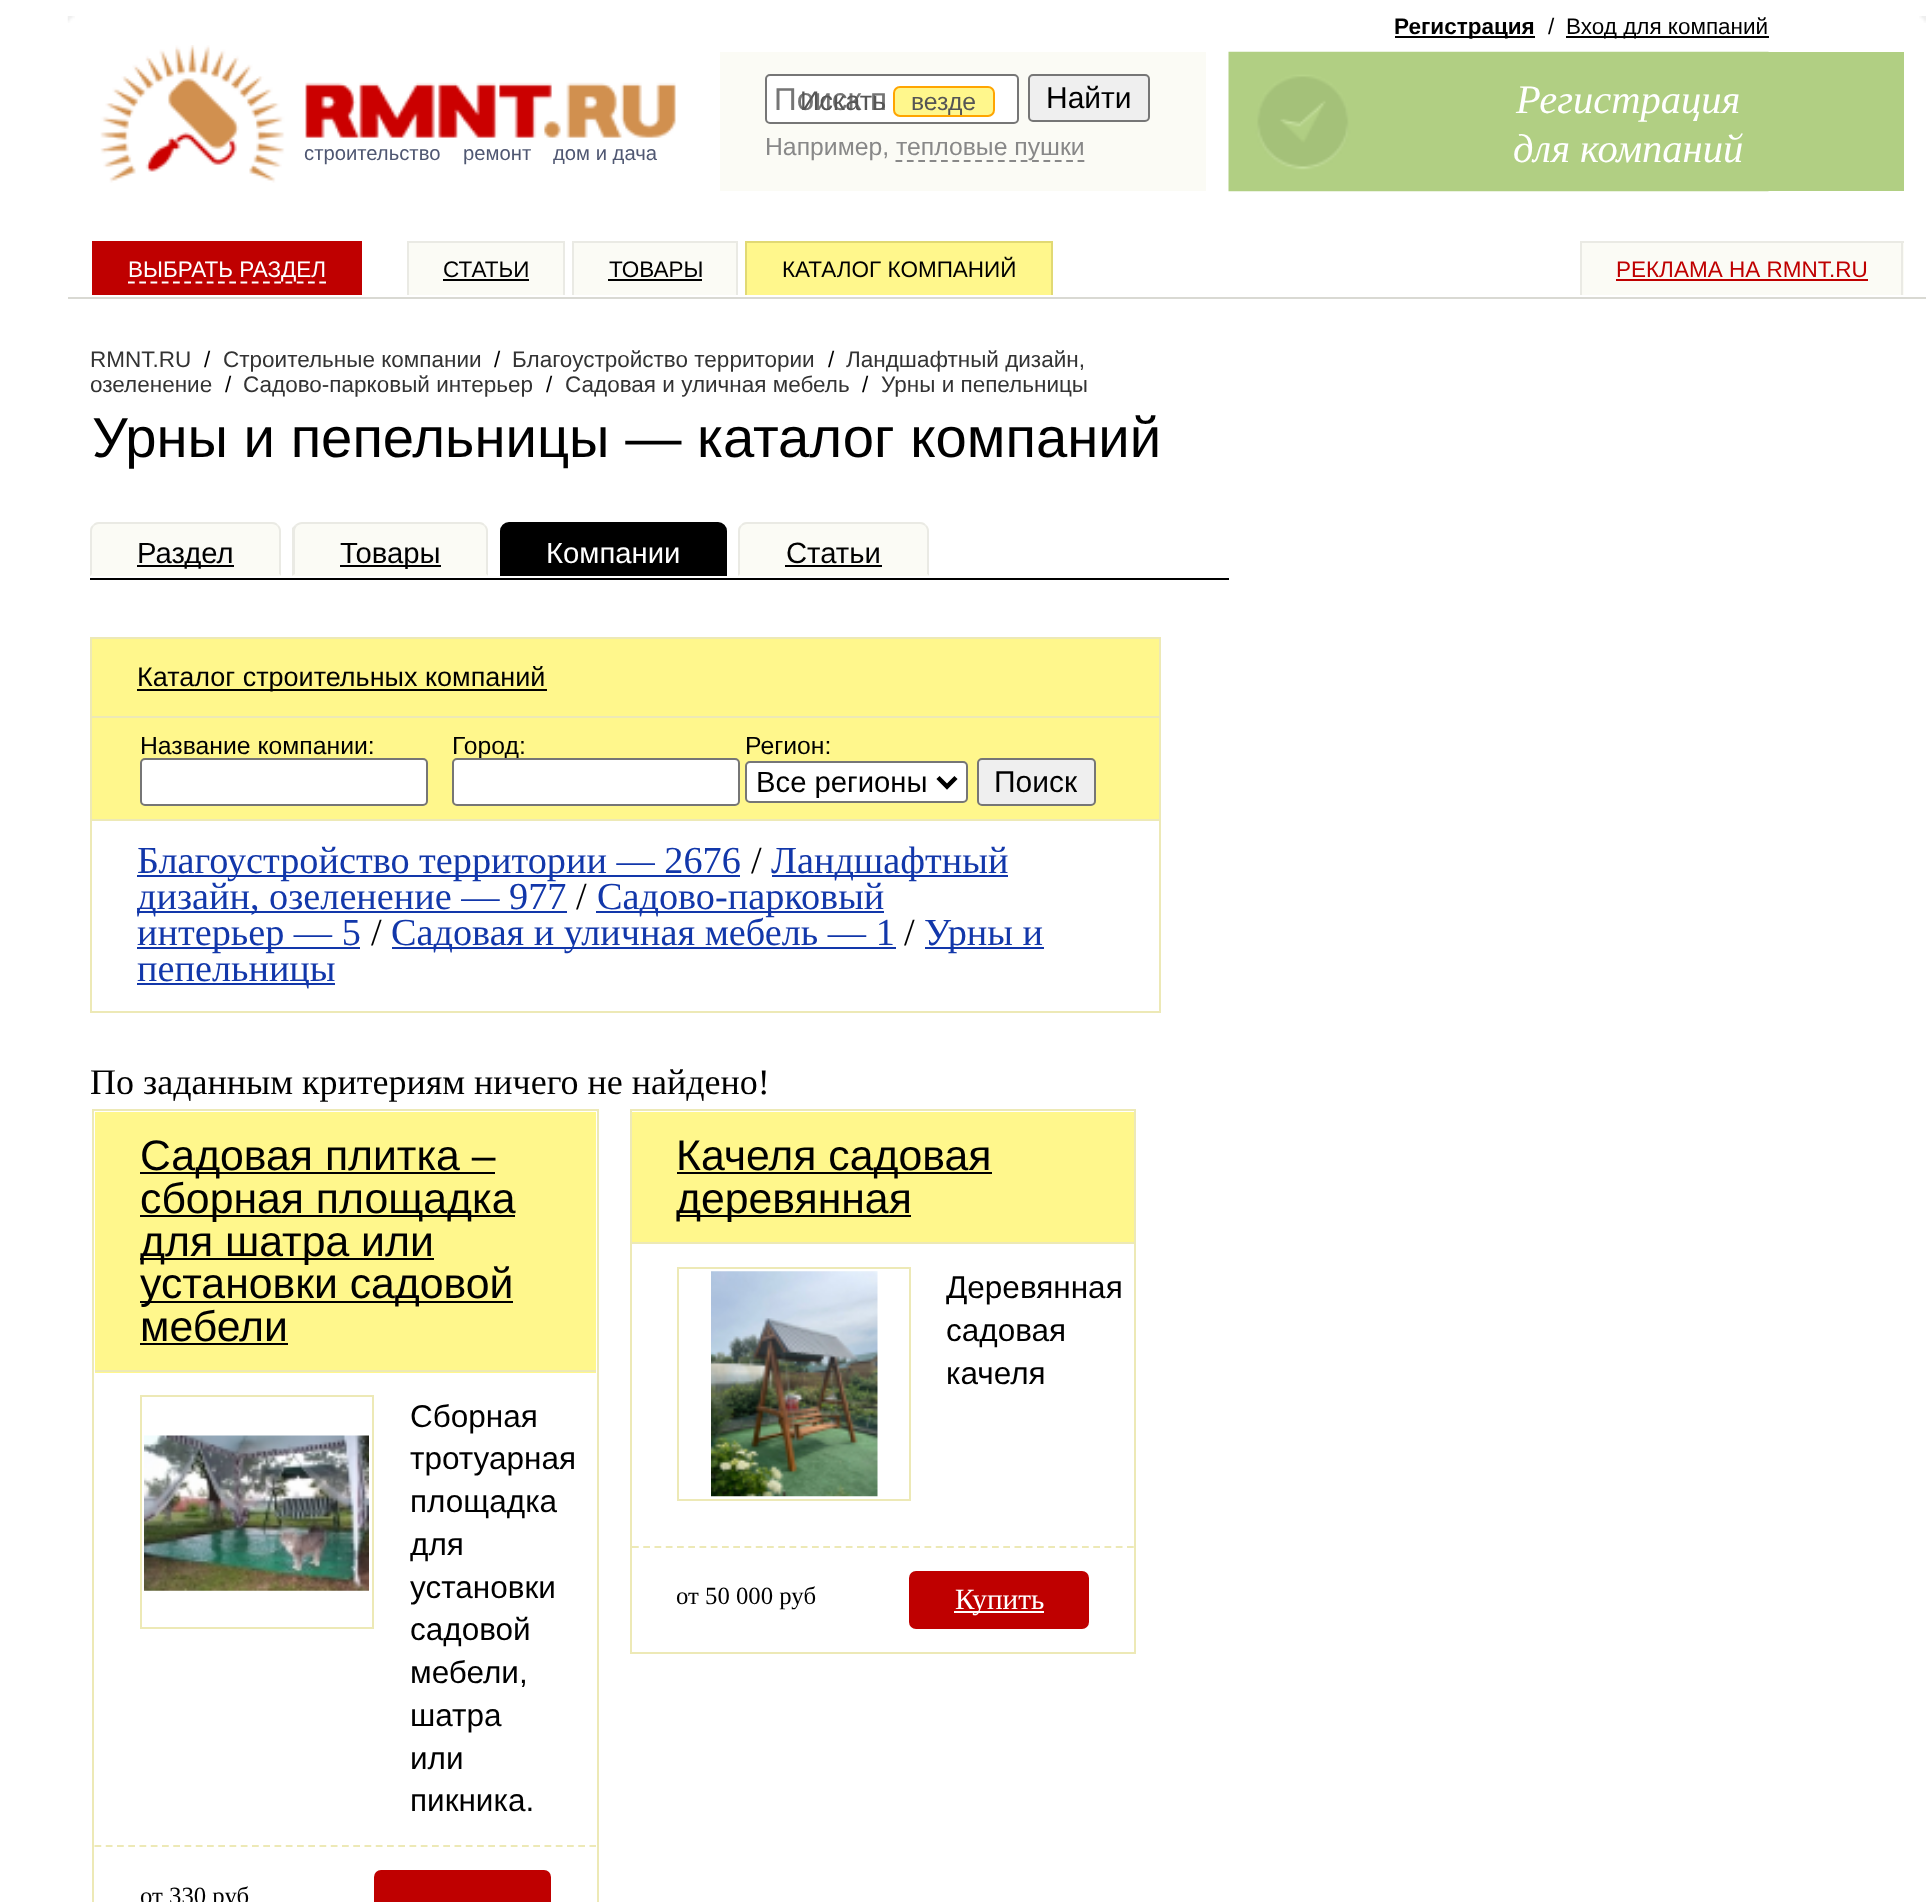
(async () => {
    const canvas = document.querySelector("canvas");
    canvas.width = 1926;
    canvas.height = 1902;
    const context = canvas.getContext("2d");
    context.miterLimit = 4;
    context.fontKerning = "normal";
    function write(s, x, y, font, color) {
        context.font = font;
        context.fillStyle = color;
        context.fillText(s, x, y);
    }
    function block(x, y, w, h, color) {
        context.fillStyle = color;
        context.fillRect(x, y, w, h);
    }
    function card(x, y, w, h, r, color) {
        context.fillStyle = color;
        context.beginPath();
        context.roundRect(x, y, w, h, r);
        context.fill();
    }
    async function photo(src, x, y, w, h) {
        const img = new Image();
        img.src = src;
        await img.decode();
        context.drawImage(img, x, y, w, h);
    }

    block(0, 0, 1926, 1902, "rgb(255, 255, 255)");
    await photo("media/1.png", 67, 16, 8, 7);
    await photo("media/2.png", 100, 45, 576, 138);
    write("строительство", 304, 160, "20.25px Liberation Sans", "rgb(79, 87, 114)");
    write("ремонт", 463, 160, "20.25px Liberation Sans", "rgb(79, 87, 114)");
    write("дом и дача", 553, 160, "20.25px Liberation Sans", "rgb(79, 87, 114)");
    block(720, 52, 486, 139, "rgb(251, 251, 245)");
    context.fillStyle = "rgb(255, 255, 255)";
    context.beginPath();
    context.roundRect(766, 75, 252, 48, 4);
    context.fill();
    context.strokeStyle = "rgb(118, 118, 118)";
    context.lineWidth = 2;
    context.stroke();
    write("Поиск п", 774, 110, "31.5px Liberation Sans", "rgb(117, 117, 117)");
    write("Искать", 800, 110, "27px Liberation Sans", "rgb(85, 85, 85)");
    context.fillStyle = "rgb(255, 247, 140)";
    context.beginPath();
    context.roundRect(894, 87, 100, 29, 6);
    context.fill();
    context.strokeStyle = "rgb(255, 165, 0)";
    context.stroke();
    write("везде", 911, 110, "24.75px Liberation Sans", "rgb(85, 85, 85)");
    context.fillStyle = "rgb(239, 239, 239)";
    context.beginPath();
    context.roundRect(1029, 75, 120, 46, 4);
    context.fill();
    context.strokeStyle = "rgb(118, 118, 118)";
    context.stroke();
    write("Найти", 1046, 108, "30px Liberation Sans", "rgb(0, 0, 0)");
    write("Например,", 765, 155, "24.75px Liberation Sans", "rgb(136, 136, 136)");
    context.beginPath();
    context.moveTo(895.5, 161);
    context.lineTo(1084.5, 161);
    context.strokeStyle = "rgb(136, 136, 136)";
    context.lineWidth = 2.2;
    context.setLineDash([6.75, 4.63]);
    context.stroke();
    write("тепловые пушки", 896, 155, "24.75px Liberation Sans", "rgb(136, 136, 136)");
    block(1395, 36, 140, 2, "rgb(0, 0, 0)");
    write("Регистрация", 1394, 34, "bold 22.5px Liberation Sans", "rgb(0, 0, 0)");
    write("/", 1548, 34, "22.5px Liberation Sans", "rgb(0, 0, 0)");
    block(1566, 36, 203, 2, "rgb(0, 0, 0)");
    write("Вход для компаний", 1566, 34, "22.5px Liberation Sans", "rgb(0, 0, 0)");
    block(1768, 52, 136, 139, "rgb(177, 207, 131)");
    await photo("media/3.png", 1228, 51, 541, 141);
    write("Регистрация", 1516, 113, "italic 40.5px Liberation Serif", "rgb(255, 255, 255)");
    write("для компаний", 1513, 162, "italic 40.5px Liberation Serif", "rgb(255, 255, 255)");
    block(68, 297, 1858, 2, "rgb(217, 217, 211)");
    block(92, 241, 270, 54, "rgb(191, 0, 0)");
    context.beginPath();
    context.moveTo(128, 282.5);
    context.lineTo(326, 282.5);
    context.strokeStyle = "rgb(255, 255, 255)";
    context.setLineDash([6.75, 4.5]);
    context.stroke();
    write("ВЫБРАТЬ РАЗДЕЛ", 128, 277, "22.5px Liberation Sans", "rgb(255, 255, 255)");
    block(409, 243, 154, 52, "rgb(251, 251, 245)");
    block(407, 241, 158, 2, "rgb(234, 234, 228)");
    block(563, 241, 2, 54, "rgb(234, 234, 228)");
    block(407, 241, 2, 54, "rgb(234, 234, 228)");
    write("СТАТЬИ", 443, 277, "22.5px Liberation Sans", "rgb(0, 0, 0)");
    block(443, 279, 86, 2, "rgb(0, 0, 0)");
    block(574, 243, 162, 52, "rgb(251, 251, 245)");
    block(572, 241, 166, 2, "rgb(234, 234, 228)");
    block(736, 241, 2, 54, "rgb(234, 234, 228)");
    block(572, 241, 2, 54, "rgb(234, 234, 228)");
    write("ТОВАРЫ", 609, 277, "22.5px Liberation Sans", "rgb(0, 0, 0)");
    block(608, 279, 94, 2, "rgb(0, 0, 0)");
    block(747, 243, 304, 52, "rgb(255, 247, 140)");
    block(745, 241, 308, 2, "rgb(225, 217, 116)");
    block(1051, 241, 2, 54, "rgb(225, 217, 116)");
    block(745, 241, 2, 54, "rgb(225, 217, 116)");
    write("КАТАЛОГ КОМПАНИЙ", 782, 277, "22.5px Liberation Sans", "rgb(0, 0, 0)");
    block(1582, 243, 322, 52, "rgb(251, 251, 245)");
    block(1580, 241, 324, 2, "rgb(234, 234, 228)");
    block(1901, 241, 2, 54, "rgb(234, 234, 228)");
    block(1580, 241, 2, 54, "rgb(234, 234, 228)");
    write("РЕКЛАМА НА RMNT.RU", 1616, 277, "22.5px Liberation Sans", "rgb(191, 0, 0)");
    block(1616, 279, 252, 2, "rgb(191, 0, 0)");
    write("RMNT.RU", 90, 367, "22.5px Liberation Sans", "rgb(51, 51, 51)");
    write("/", 204, 367, "22.5px Liberation Sans", "rgb(0, 0, 0)");
    write("Строительные компании", 223, 367, "22.5px Liberation Sans", "rgb(51, 51, 51)");
    write("/", 494, 367, "22.5px Liberation Sans", "rgb(0, 0, 0)");
    write("Благоустройство территории", 512, 367, "22.5px Liberation Sans", "rgb(51, 51, 51)");
    write("/", 828, 367, "22.5px Liberation Sans", "rgb(0, 0, 0)");
    write("Ландшафтный дизайн,", 846, 367, "22.5px Liberation Sans", "rgb(51, 51, 51)");
    write("озеленение", 90, 392, "22.5px Liberation Sans", "rgb(51, 51, 51)");
    write("/", 225, 392, "22.5px Liberation Sans", "rgb(0, 0, 0)");
    write("Садово-парковый интерьер", 243, 392, "22.5px Liberation Sans", "rgb(51, 51, 51)");
    write("/", 546, 392, "22.5px Liberation Sans", "rgb(0, 0, 0)");
    write("Садовая и уличная мебель", 565, 392, "22.5px Liberation Sans", "rgb(51, 51, 51)");
    write("/", 862, 392, "22.5px Liberation Sans", "rgb(0, 0, 0)");
    write("Урны и пепельницы", 881, 392, "22.5px Liberation Sans", "rgb(51, 51, 51)");
    write("Урны и пепельницы — каталог компаний", 92, 457, "56.25px Liberation Sans", "rgb(0, 0, 0)");
    block(90, 578, 1139, 2, "rgb(0, 0, 0)");
    context.fillStyle = "rgb(251, 251, 245)";
    context.beginPath();
    context.roundRect(90, 522, 191, 54, [9, 9, 0, 0]);
    context.fill();
    context.fillStyle = "rgb(234, 234, 228)";
    context.beginPath();
    context.moveTo(99, 522);
    context.bezierCurveTo(96, 522, 94, 523, 93, 525);
    context.lineTo(94, 526);
    context.bezierCurveTo(95, 525, 97, 524, 99, 524);
    context.lineTo(272, 524);
    context.bezierCurveTo(274, 524, 276, 525, 277, 526);
    context.lineTo(278, 525);
    context.bezierCurveTo(277, 523, 275, 522, 272, 522);
    context.closePath();
    context.fill();
    context.beginPath();
    context.moveTo(278, 525);
    context.bezierCurveTo(280, 526, 281, 529, 281, 531);
    context.lineTo(281, 576);
    context.lineTo(279, 574);
    context.lineTo(279, 531);
    context.bezierCurveTo(279, 529, 278, 527, 277, 526);
    context.closePath();
    context.fill();
    context.fillStyle = "rgb(251, 251, 245)";
    context.beginPath();
    context.moveTo(281, 576);
    context.lineTo(279, 574);
    context.lineTo(92, 574);
    context.lineTo(90, 576);
    context.closePath();
    context.fill();
    context.fillStyle = "rgb(234, 234, 228)";
    context.beginPath();
    context.moveTo(90, 576);
    context.lineTo(92, 574);
    context.lineTo(92, 531);
    context.bezierCurveTo(92, 529, 93, 527, 94, 526);
    context.lineTo(93, 525);
    context.bezierCurveTo(91, 526, 90, 528, 90, 531);
    context.closePath();
    context.fill();
    block(137, 565, 97, 2, "rgb(0, 0, 0)");
    write("Раздел", 137, 563, "29.25px Liberation Sans", "rgb(0, 0, 0)");
    context.fillStyle = "rgb(251, 251, 245)";
    context.beginPath();
    context.roundRect(293, 522, 195, 54, [9, 9, 0, 0]);
    context.fill();
    context.fillStyle = "rgb(234, 234, 228)";
    context.beginPath();
    context.moveTo(302, 522);
    context.bezierCurveTo(300, 522, 297, 523, 295, 525);
    context.lineTo(297, 526);
    context.bezierCurveTo(298, 525, 300, 524, 302, 524);
    context.lineTo(479, 524);
    context.bezierCurveTo(481, 524, 483, 525, 484, 526);
    context.lineTo(485, 525);
    context.bezierCurveTo(484, 523, 482, 522, 479, 522);
    context.closePath();
    context.fill();
    context.beginPath();
    context.moveTo(485, 525);
    context.bezierCurveTo(487, 526, 488, 529, 488, 531);
    context.lineTo(488, 576);
    context.lineTo(486, 574);
    context.lineTo(486, 531);
    context.bezierCurveTo(486, 529, 485, 527, 484, 526);
    context.closePath();
    context.fill();
    context.fillStyle = "rgb(251, 251, 245)";
    context.beginPath();
    context.moveTo(292, 576);
    context.lineTo(488, 576);
    context.lineTo(486, 574);
    context.lineTo(295, 574);
    context.closePath();
    context.fill();
    context.fillStyle = "rgb(234, 234, 228)";
    context.beginPath();
    context.moveTo(292, 576);
    context.lineTo(292, 528);
    context.lineTo(295, 525);
    context.lineTo(297, 526);
    context.bezierCurveTo(296, 527, 295, 529, 295, 531);
    context.lineTo(295, 574);
    context.closePath();
    context.fill();
    block(340, 565, 101, 2, "rgb(0, 0, 0)");
    write("Товары", 340, 563, "29.25px Liberation Sans", "rgb(0, 0, 0)");
    context.beginPath();
    context.roundRect(501, 523, 225, 52, [8, 8, 0, 0]);
    context.fill();
    context.strokeStyle = "rgb(0, 0, 0)";
    context.lineWidth = 2;
    context.setLineDash([]);
    context.stroke();
    write("Компании", 546, 563, "29.25px Liberation Sans", "rgb(255, 255, 255)");
    context.fillStyle = "rgb(251, 251, 245)";
    context.beginPath();
    context.roundRect(738, 522, 191, 54, [9, 9, 0, 0]);
    context.fill();
    context.fillStyle = "rgb(234, 234, 228)";
    context.beginPath();
    context.moveTo(747, 522);
    context.bezierCurveTo(744, 522, 742, 523, 741, 525);
    context.lineTo(742, 526);
    context.bezierCurveTo(743, 525, 745, 524, 747, 524);
    context.lineTo(920, 524);
    context.bezierCurveTo(922, 524, 924, 525, 925, 526);
    context.lineTo(926, 525);
    context.bezierCurveTo(925, 523, 923, 522, 920, 522);
    context.closePath();
    context.fill();
    context.beginPath();
    context.moveTo(926, 525);
    context.bezierCurveTo(928, 526, 929, 529, 929, 531);
    context.lineTo(929, 576);
    context.lineTo(927, 574);
    context.lineTo(927, 531);
    context.bezierCurveTo(927, 529, 926, 527, 925, 526);
    context.closePath();
    context.fill();
    context.fillStyle = "rgb(251, 251, 245)";
    context.beginPath();
    context.moveTo(929, 576);
    context.lineTo(927, 574);
    context.lineTo(740, 574);
    context.lineTo(738, 576);
    context.closePath();
    context.fill();
    context.fillStyle = "rgb(234, 234, 228)";
    context.beginPath();
    context.moveTo(738, 576);
    context.lineTo(740, 574);
    context.lineTo(740, 531);
    context.bezierCurveTo(740, 529, 741, 527, 742, 526);
    context.lineTo(741, 525);
    context.bezierCurveTo(739, 526, 738, 528, 738, 531);
    context.closePath();
    context.fill();
    write("Статьи", 786, 563, "29.25px Liberation Sans", "rgb(0, 0, 0)");
    block(785, 565, 97, 2, "rgb(0, 0, 0)");
    context.strokeStyle = "rgb(237, 233, 182)";
    context.strokeRect(91, 638, 1069, 374);
    block(92, 639, 1067, 77, "rgb(255, 247, 140)");
    block(92, 716, 1067, 2, "rgb(237, 233, 182)");
    block(137, 689, 410, 2, "rgb(0, 0, 0)");
    write("Каталог строительных компаний", 137, 686, "27px Liberation Sans", "rgb(0, 0, 0)");
    block(92, 718, 1067, 101, "rgb(255, 247, 140)");
    block(92, 819, 1067, 2, "rgb(237, 233, 182)");
    write("Название компании:", 140, 754, "24.75px Liberation Sans", "rgb(0, 0, 0)");
    context.fillStyle = "rgb(255, 255, 255)";
    context.beginPath();
    context.roundRect(141, 759, 286, 46, 4);
    context.fill();
    context.strokeStyle = "rgb(118, 118, 118)";
    context.stroke();
    write("Город:", 452, 754, "24.75px Liberation Sans", "rgb(0, 0, 0)");
    context.fillStyle = "rgb(255, 255, 255)";
    context.beginPath();
    context.roundRect(453, 759, 286, 46, 4);
    context.fill();
    context.stroke();
    write("Регион:", 745, 754, "24.75px Liberation Sans", "rgb(0, 0, 0)");
    context.fillStyle = "rgb(255, 255, 255)";
    context.beginPath();
    context.roundRect(746, 762, 221, 40, 4);
    context.fill();
    context.stroke();
    context.beginPath();
    context.moveTo(938, 777.5);
    context.lineTo(947, 786.5);
    context.lineTo(956, 777.5);
    context.strokeStyle = "rgb(0, 0, 0)";
    context.lineWidth = 4.5;
    context.stroke();
    write("Все регионы", 756, 792, "29.25px Liberation Sans", "rgb(0, 0, 0)");
    context.fillStyle = "rgb(239, 239, 239)";
    context.beginPath();
    context.roundRect(978, 759, 117, 46, 4);
    context.fill();
    context.strokeStyle = "rgb(118, 118, 118)";
    context.lineWidth = 2;
    context.stroke();
    write("Поиск", 994, 792, "30px Liberation Sans", "rgb(0, 0, 0)");
    block(137, 875, 603, 2, "rgb(18, 55, 170)");
    write("Благоустройство территории — 2676", 137, 873, "38.25px Liberation Serif", "rgb(18, 55, 170)");
    write("/", 751, 873, "38.25px Liberation Serif", "rgb(0, 0, 0)");
    block(772, 875, 236, 2, "rgb(18, 55, 170)");
    write("Ландшафтный", 771, 873, "38.25px Liberation Serif", "rgb(18, 55, 170)");
    block(137, 911, 430, 2, "rgb(18, 55, 170)");
    write("дизайн, озеленение — 977", 137, 909, "38.25px Liberation Serif", "rgb(18, 55, 170)");
    write("/", 576, 909, "38.25px Liberation Serif", "rgb(0, 0, 0)");
    block(596, 911, 288, 2, "rgb(18, 55, 170)");
    write("Садово-парковый", 597, 909, "38.25px Liberation Serif", "rgb(18, 55, 170)");
    block(137, 947, 223, 2, "rgb(18, 55, 170)");
    write("интерьер — 5", 137, 945, "38.25px Liberation Serif", "rgb(18, 55, 170)");
    write("/", 371, 945, "38.25px Liberation Serif", "rgb(0, 0, 0)");
    block(392, 947, 504, 2, "rgb(18, 55, 170)");
    write("Садовая и уличная мебель — 1", 391, 945, "38.25px Liberation Serif", "rgb(18, 55, 170)");
    write("/", 904, 945, "38.25px Liberation Serif", "rgb(0, 0, 0)");
    block(925, 947, 119, 2, "rgb(18, 55, 170)");
    write("Урны и", 924, 945, "38.25px Liberation Serif", "rgb(18, 55, 170)");
    block(137, 983, 198, 2, "rgb(18, 55, 170)");
    write("пепельницы", 137, 981, "38.25px Liberation Serif", "rgb(18, 55, 170)");
    write("По заданным критериям ничего не найдено!", 90, 1094, "36px Liberation Serif", "rgb(0, 0, 0)");
    context.strokeStyle = "rgb(237, 233, 182)";
    context.strokeRect(93, 1110, 505, 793);
    block(95, 1112, 501, 261, "rgb(255, 247, 140)");
    block(95, 1370, 501, 2, "rgb(237, 233, 182)");
    block(140, 1172, 355, 2, "rgb(0, 0, 0)");
    write("Садовая плитка –", 140, 1170, "42.75px Liberation Sans", "rgb(0, 0, 0)");
    block(140, 1215, 375, 2, "rgb(0, 0, 0)");
    write("сборная площадка", 140, 1213, "42.75px Liberation Sans", "rgb(0, 0, 0)");
    block(140, 1258, 294, 2, "rgb(0, 0, 0)");
    write("для шатра или", 140, 1256, "42.75px Liberation Sans", "rgb(0, 0, 0)");
    block(140, 1301, 373, 2, "rgb(0, 0, 0)");
    write("установки садовой", 140, 1298, "42.75px Liberation Sans", "rgb(0, 0, 0)");
    write("мебели", 140, 1341, "42.75px Liberation Sans", "rgb(0, 0, 0)");
    block(140, 1343, 148, 2, "rgb(0, 0, 0)");
    await photo("media/4.png", 144, 1435, 225, 156);
    context.strokeRect(141, 1396, 232, 232);
    write("Сборная", 410, 1427, "31.5px Liberation Sans", "rgb(0, 0, 0)");
    write("тротуарная", 410, 1469, "31.5px Liberation Sans", "rgb(0, 0, 0)");
    write("площадка", 410, 1512, "31.5px Liberation Sans", "rgb(0, 0, 0)");
    write("для", 410, 1555, "31.5px Liberation Sans", "rgb(0, 0, 0)");
    write("установки", 410, 1598, "31.5px Liberation Sans", "rgb(0, 0, 0)");
    write("садовой", 410, 1640, "31.5px Liberation Sans", "rgb(0, 0, 0)");
    write("мебели,", 410, 1683, "31.5px Liberation Sans", "rgb(0, 0, 0)");
    write("шатра", 410, 1726, "31.5px Liberation Sans", "rgb(0, 0, 0)");
    write("или", 410, 1769, "31.5px Liberation Sans", "rgb(0, 0, 0)");
    write("пикника.", 410, 1811, "31.5px Liberation Sans", "rgb(0, 0, 0)");
    context.beginPath();
    context.moveTo(94.5, 1846);
    context.lineTo(596, 1846);
    context.lineWidth = 2.2;
    context.setLineDash([6.75, 4.5]);
    context.stroke();
    write("от 330 руб", 140, 1904, "24.75px Liberation Serif", "rgb(0, 0, 0)");
    card(374, 1870, 177, 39, 7, "rgb(191, 0, 0)");
    context.lineWidth = 2;
    context.setLineDash([]);
    context.strokeRect(631, 1110, 504, 543);
    block(632, 1112, 502, 130, "rgb(255, 247, 140)");
    block(632, 1242, 502, 2, "rgb(237, 233, 182)");
    block(677, 1172, 315, 2, "rgb(0, 0, 0)");
    write("Качеля садовая", 676, 1170, "42.75px Liberation Sans", "rgb(0, 0, 0)");
    block(677, 1215, 234, 2, "rgb(0, 0, 0)");
    write("деревянная", 676, 1213, "42.75px Liberation Sans", "rgb(0, 0, 0)");
    await photo("media/5.png", 711, 1271, 167, 226);
    context.strokeRect(678, 1268, 232, 232);
    write("Деревянная", 946, 1298, "31.5px Liberation Sans", "rgb(0, 0, 0)");
    write("садовая", 946, 1341, "31.5px Liberation Sans", "rgb(0, 0, 0)");
    write("качеля", 946, 1384, "31.5px Liberation Sans", "rgb(0, 0, 0)");
    context.beginPath();
    context.moveTo(632, 1547);
    context.lineTo(1134, 1547);
    context.lineWidth = 2.2;
    context.setLineDash([6.75, 4.5]);
    context.stroke();
    write("от 50 000 руб", 676, 1604, "24.75px Liberation Serif", "rgb(0, 0, 0)");
    card(909, 1571, 180, 58, 7, "rgb(191, 0, 0)");
    block(954, 1611, 90, 2, "rgb(255, 255, 255)");
    write("Купить", 955, 1609, "29.25px Liberation Serif", "rgb(255, 255, 255)");
    await photo("media/6.png", 1919, 16, 7, 7);
})();
